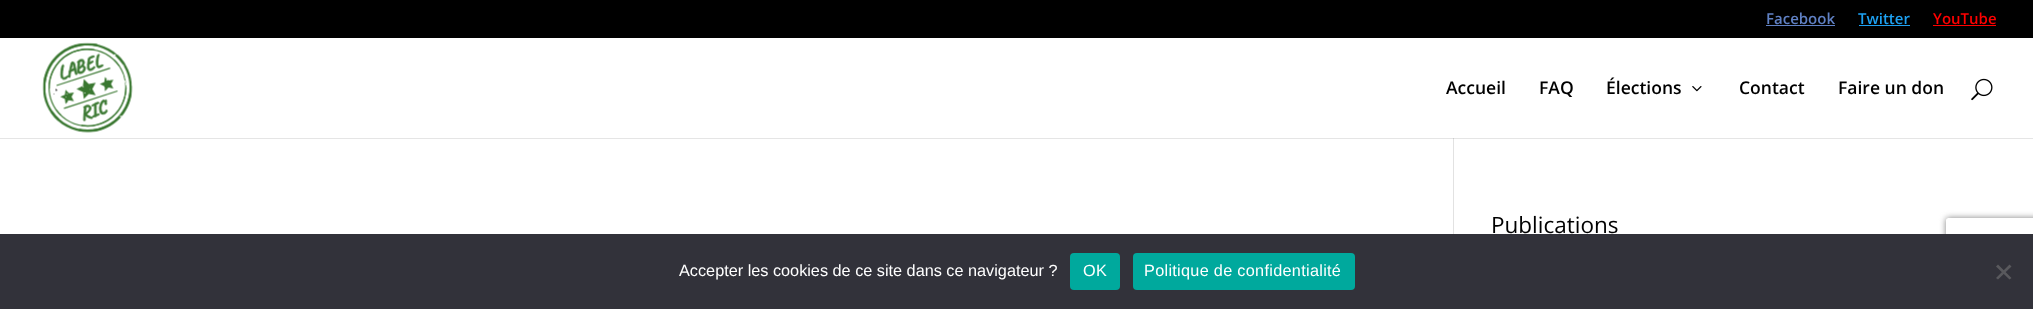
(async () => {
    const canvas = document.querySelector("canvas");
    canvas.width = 2033;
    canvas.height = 309;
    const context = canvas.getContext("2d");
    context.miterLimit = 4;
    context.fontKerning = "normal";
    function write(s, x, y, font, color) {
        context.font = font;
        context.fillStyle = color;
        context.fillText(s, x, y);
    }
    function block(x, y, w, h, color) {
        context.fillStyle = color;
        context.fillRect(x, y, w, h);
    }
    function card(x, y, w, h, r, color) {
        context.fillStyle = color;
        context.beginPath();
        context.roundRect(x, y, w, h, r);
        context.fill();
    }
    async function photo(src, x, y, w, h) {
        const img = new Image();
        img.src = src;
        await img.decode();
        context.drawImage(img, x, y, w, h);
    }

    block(0, 0, 2033, 309, "rgb(255, 255, 255)");
    block(0, 0, 2033, 38, "rgb(0, 0, 0)");
    write("Facebook", 1766, 24, "600 15px Open Sans", "rgb(96, 129, 196)");
    block(1766, 25, 69, 1, "rgb(96, 129, 196)");
    write("Twitter", 1858, 24, "600 15px Open Sans", "rgb(29, 161, 242)");
    block(1859, 25, 51, 1, "rgb(29, 161, 242)");
    write("YouTube", 1933, 24, "600 15px Open Sans", "rgb(255, 0, 0)");
    block(1933, 25, 63, 1, "rgb(255, 0, 0)");
    block(1453, 138, 1, 96, "rgb(226, 226, 226)");
    context.fillStyle = "rgba(0, 0, 0, 0.1)";
    context.beginPath();
    context.moveTo(0, 138);
    context.lineTo(0, 139);
    context.lineTo(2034, 139);
    context.lineTo(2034, 39);
    context.lineTo(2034, 138);
    context.closePath();
    context.fill();
    await photo("media/1.png", 42, 42, 91, 91);
    write("Accueil", 1446, 94, "600 17.5px Open Sans", "rgb(0, 0, 0)");
    write("FAQ", 1539, 94, "600 17.5px Open Sans", "rgb(0, 0, 0)");
    write("Élections", 1606, 94, "600 17.5px Open Sans", "rgb(0, 0, 0)");
    await photo("media/2.png", 1692, 86, 10, 6);
    write("Contact", 1739, 94, "600 17.5px Open Sans", "rgb(0, 0, 0)");
    write("Faire un don", 1838, 94, "600 17.5px Open Sans", "rgb(0, 0, 0)");
    await photo("media/3.png", 1971, 78, 22, 23);
    write("Publications", 1491, 233, "22.5px Open Sans", "rgb(0, 0, 0)");
    context.save();
    context.beginPath();
    context.moveTo(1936, 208);
    context.lineTo(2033, 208);
    context.lineTo(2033, 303);
    context.lineTo(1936, 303);
    context.closePath();
    context.moveTo(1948.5, 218);
    context.lineTo(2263.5, 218);
    context.bezierCurveTo(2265, 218, 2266, 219, 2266, 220.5);
    context.lineTo(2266, 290.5);
    context.bezierCurveTo(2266, 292, 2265, 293, 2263.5, 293);
    context.lineTo(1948.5, 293);
    context.bezierCurveTo(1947, 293, 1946, 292, 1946, 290.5);
    context.lineTo(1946, 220.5);
    context.bezierCurveTo(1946, 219, 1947, 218, 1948.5, 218);
    context.closePath();
    context.clip("evenodd");
    context.fillStyle = "rgb(128, 128, 128)";
    context.filter = "blur(3px)";
    context.beginPath();
    context.roundRect(1946, 218, 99, 75, 2.5);
    context.fill();
    context.filter = "none";
    context.restore();
    block(0, 234, 2033, 75, "rgb(50, 50, 58)");
    write("Accepter les cookies de ce site dans ce navigateur ?", 679, 276, "16.25px Liberation Sans", "rgb(255, 255, 255)");
    card(1070, 253, 50, 37, 4, "rgb(0, 169, 157)");
    context.letterSpacing = "0.3px";
    write("OK", 1083, 276, "16.25px Liberation Sans", "rgb(255, 255, 255)");
    card(1133, 253, 222, 37, 4, "rgb(0, 169, 157)");
    write("Politique de confidentialité", 1144, 276, "16.25px Liberation Sans", "rgb(255, 255, 255)");
    context.fillStyle = "rgb(89, 89, 93)";
    context.beginPath();
    context.moveTo(2009.5, 264.5);
    context.lineTo(2011.5, 266.5);
    context.lineTo(1998, 279.5);
    context.lineTo(1996, 278);
    context.closePath();
    context.fill();
    context.beginPath();
    context.moveTo(1996, 266.5);
    context.lineTo(1998, 264.5);
    context.lineTo(2011.5, 278);
    context.lineTo(2009.5, 279.5);
    context.closePath();
    context.fill();
})();
